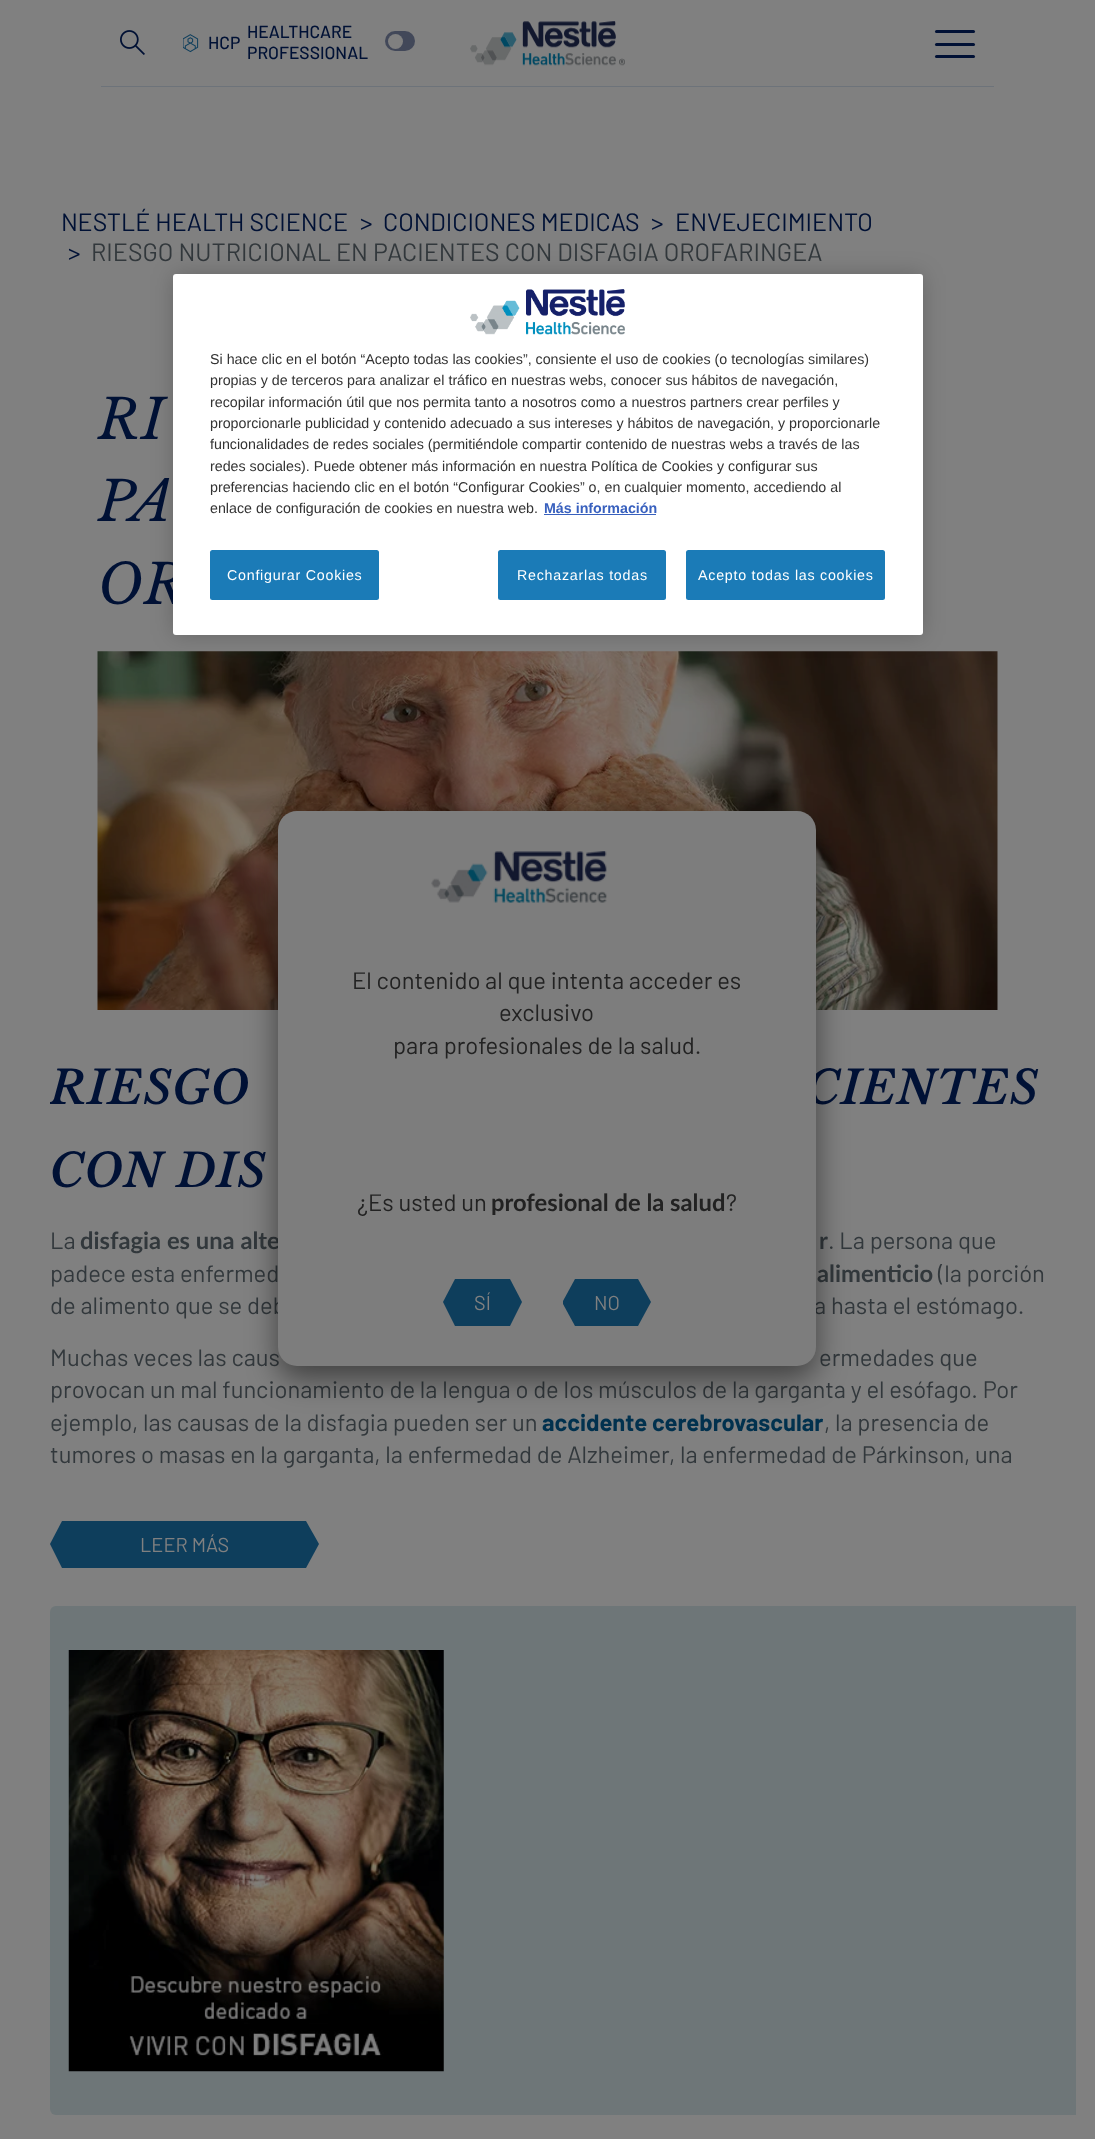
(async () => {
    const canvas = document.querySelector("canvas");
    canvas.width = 1095;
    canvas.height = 2139;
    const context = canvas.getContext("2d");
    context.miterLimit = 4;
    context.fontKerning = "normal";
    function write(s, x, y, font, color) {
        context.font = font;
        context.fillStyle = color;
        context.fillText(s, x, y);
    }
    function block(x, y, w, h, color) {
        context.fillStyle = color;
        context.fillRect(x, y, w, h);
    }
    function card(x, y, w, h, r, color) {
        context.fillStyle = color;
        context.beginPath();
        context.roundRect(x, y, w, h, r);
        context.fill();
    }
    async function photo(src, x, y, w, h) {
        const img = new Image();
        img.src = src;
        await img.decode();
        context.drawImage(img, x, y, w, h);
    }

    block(0, 0, 1095, 2139, "rgb(128, 128, 128)");
    block(101, 86, 893, 1, "rgb(109, 115, 122)");
    await photo("media/1.png", 120, 30, 25, 25);
    await photo("media/2.png", 183, 34, 16, 19);
    write("HCP", 208, 49, "500 17.5px Barlow", "rgb(0, 17, 53)");
    write("HEALTHCARE", 247, 38, "500 17.5px Barlow", "rgb(0, 17, 53)");
    write("PROFESSIONAL", 247, 59, "500 17.5px Barlow", "rgb(0, 17, 53)");
    card(385, 31, 30, 20, 10, "rgb(66, 72, 89)");
    context.fillStyle = "rgb(128, 128, 128)";
    context.beginPath();
    context.arc(395.5, 41.5, 7.5, 0, Math.PI * 2);
    context.fill();
    await photo("media/3.png", 470, 21, 155, 45);
    card(935, 30, 40, 3, 1.5, "rgb(1, 17, 53)");
    card(935, 43, 40, 3, 1.5, "rgb(1, 17, 53)");
    card(935, 55, 40, 3, 1.5, "rgb(1, 17, 53)");
    write("NESTLÉ HEALTH SCIENCE", 61, 231, "25px Barlow", "rgb(0, 17, 53)");
    write(">", 360, 231, "25px Barlow", "rgb(0, 17, 53)");
    write("CONDICIONES MEDICAS", 383, 231, "25px Barlow", "rgb(0, 17, 53)");
    write(">", 651, 231, "25px Barlow", "rgb(0, 17, 53)");
    write("ENVEJECIMIENTO", 675, 231, "25px Barlow", "rgb(0, 17, 53)");
    write(">", 68, 261, "25px Barlow", "rgb(0, 17, 53)");
    write("RIESGO NUTRICIONAL EN PACIENTES CON DISFAGIA OROFARINGEA", 91, 261, "25px Barlow", "rgb(50, 56, 60)");
    context.letterSpacing = "1.25px";
    write("RI", 98, 439, "italic 55px Libre Baskerville", "rgb(0, 17, 53)");
    write("PA", 98, 521, "italic 55px Libre Baskerville", "rgb(0, 17, 53)");
    write("OR", 98, 604, "italic 55px Libre Baskerville", "rgb(0, 17, 53)");
    await photo("media/4.png", 97, 651, 901, 359);
    context.save();
    context.beginPath();
    context.rect(50, 1023, 995, 448);
    context.clip();
    write("RIESGO", 50, 1104, "italic 600 46.25px Libre Baskerville", "rgb(0, 17, 53)");
    context.restore();
    write("CIENTES", 806, 1104, "italic 600 46.25px Libre Baskerville", "rgb(0, 17, 53)");
    write("CON DIS", 50, 1187, "italic 600 46.25px Libre Baskerville", "rgb(0, 17, 53)");
    context.letterSpacing = "0px";
    write("La", 50, 1249, "23.75px Barlow", "rgb(50, 56, 60)");
    write("disfagia es una alte", 80, 1249, "bold 23.75px Lato", "rgb(50, 56, 60)");
    write("r", 819, 1249, "bold 23.75px Lato", "rgb(50, 56, 60)");
    write(". La persona que", 828, 1249, "23.75px Barlow", "rgb(50, 56, 60)");
    write("padece esta enfermed", 50, 1282, "23.75px Barlow", "rgb(50, 56, 60)");
    write("alimenticio", 817, 1282, "bold 23.75px Lato", "rgb(50, 56, 60)");
    write("(la porción", 938, 1282, "23.75px Barlow", "rgb(50, 56, 60)");
    write("de alimento que se deb", 50, 1314, "23.75px Barlow", "rgb(50, 56, 60)");
    write("a hasta el estómago.", 814, 1314, "23.75px Barlow", "rgb(50, 56, 60)");
    write("Muchas veces las caus", 50, 1366, "23.75px Barlow", "rgb(50, 56, 60)");
    write("ermedades que", 819, 1366, "23.75px Barlow", "rgb(50, 56, 60)");
    write("provocan un mal funcionamiento de la lengua o de los músculos de la garganta y el esófago. Por", 50, 1398, "23.75px Barlow", "rgb(50, 56, 60)");
    write("ejemplo, las causas de la disfagia pueden ser un", 50, 1431, "23.75px Barlow", "rgb(50, 56, 60)");
    write("accidente cerebrovascular", 542, 1431, "bold 23.75px Barlow", "rgb(1, 49, 78)");
    write(", la presencia de", 824, 1431, "23.75px Barlow", "rgb(50, 56, 60)");
    write("tumores o masas en la garganta, la enfermedad de Alzheimer, la enfermedad de Párkinson, una", 50, 1463, "23.75px Barlow", "rgb(50, 56, 60)");
    context.fillStyle = "rgb(14, 62, 92)";
    context.beginPath();
    context.moveTo(306, 1521);
    context.lineTo(319, 1544);
    context.lineTo(306, 1568);
    context.lineTo(62, 1568);
    context.lineTo(50, 1544);
    context.lineTo(62, 1521);
    context.closePath();
    context.fill();
    write("LEER MÁS", 140, 1552, "20px Barlow", "rgb(128, 128, 128)");
    context.fillStyle = "rgb(110, 118, 120)";
    context.beginPath();
    context.roundRect(50, 1606, 1026, 509, [6, 0, 0, 6]);
    context.fill();
    await photo("media/5.png", 68, 1650, 376, 422);
    context.fillStyle = "rgba(0, 0, 0, 0.2)";
    context.filter = "blur(11px)";
    context.beginPath();
    context.roundRect(173, 274, 750, 361, 3);
    context.fill();
    context.filter = "none";
    card(173, 274, 750, 361, 3, "rgb(255, 255, 255)");
    await photo("media/6.png", 470, 289, 155, 46);
    write("Si hace clic en el botón “Acepto todas las cookies”, consiente el uso de cookies (o tecnologías similares)", 210, 364, "14.25px Liberation Sans", "rgb(51, 51, 51)");
    write("propias y de terceros para analizar el tráfico en nuestras webs, conocer sus hábitos de navegación,", 210, 385, "14.25px Liberation Sans", "rgb(51, 51, 51)");
    write("recopilar información útil que nos permita tanto a nosotros como a nuestros partners crear perfiles y", 210, 407, "14.25px Liberation Sans", "rgb(51, 51, 51)");
    write("proporcionarle publicidad y contenido adecuado a sus intereses y hábitos de navegación, y proporcionarle", 210, 428, "14.25px Liberation Sans", "rgb(51, 51, 51)");
    write("funcionalidades de redes sociales (permitiéndole compartir contenido de nuestras webs a través de las", 210, 449, "14.25px Liberation Sans", "rgb(51, 51, 51)");
    write("redes sociales). Puede obtener más información en nuestra Política de Cookies y configurar sus", 210, 471, "14.25px Liberation Sans", "rgb(51, 51, 51)");
    write("preferencias haciendo clic en el botón “Configurar Cookies” o, en cualquier momento, accediendo al", 210, 492, "14.25px Liberation Sans", "rgb(51, 51, 51)");
    write("enlace de configuración de cookies en nuestra web.", 210, 513, "14.25px Liberation Sans", "rgb(51, 51, 51)");
    write("Más información", 544, 513, "bold 14.25px Liberation Sans", "rgb(56, 96, 190)");
    block(544, 514, 112, 1, "rgb(56, 96, 190)");
    card(210, 550, 169, 50, 2.5, "rgb(27, 123, 183)");
    context.letterSpacing = "0.75px";
    write("Configurar Cookies", 227, 580, "14.25px Liberation Sans", "rgb(255, 255, 255)");
    card(498, 550, 168, 50, 2.5, "rgb(27, 123, 183)");
    write("Rechazarlas todas", 517, 580, "14.25px Liberation Sans", "rgb(255, 255, 255)");
    card(686, 550, 199, 50, 2.5, "rgb(27, 123, 183)");
    write("Acepto todas las cookies", 698, 580, "14.25px Liberation Sans", "rgb(255, 255, 255)");
    context.fillStyle = "rgba(0, 0, 0, 0.5)";
    context.filter = "blur(15.5px)";
    context.beginPath();
    context.roundRect(278, 824, 538, 555, 19);
    context.fill();
    context.filter = "none";
    card(278, 811, 538, 555, 19, "rgb(125, 125, 125)");
    await photo("media/7.png", 431, 851, 176, 52);
    context.letterSpacing = "0px";
    write("El contenido al que intenta acceder es", 352, 989, "23.75px Barlow", "rgb(34, 34, 34)");
    write("exclusivo", 499, 1021, "23.75px Barlow", "rgb(34, 34, 34)");
    write("para profesionales de la salud.", 393, 1054, "23.75px Barlow", "rgb(34, 34, 34)");
    write("¿Es usted un", 357, 1211, "23.75px Barlow", "rgb(34, 34, 34)");
    write("profesional de la salud", 491, 1211, "bold 23.75px Lato", "rgb(34, 34, 34)");
    write("?", 726, 1211, "23.75px Barlow", "rgb(34, 34, 34)");
    context.fillStyle = "rgb(14, 62, 92)";
    context.beginPath();
    context.moveTo(443, 1302);
    context.lineTo(455, 1279);
    context.lineTo(510, 1279);
    context.lineTo(522, 1302);
    context.lineTo(510, 1326);
    context.lineTo(455, 1326);
    context.closePath();
    context.fill();
    write("SÍ", 474, 1310, "20px Barlow", "rgb(128, 128, 128)");
    context.fillStyle = "rgb(14, 62, 92)";
    context.beginPath();
    context.moveTo(563, 1301);
    context.lineTo(575, 1279);
    context.lineTo(638, 1279);
    context.lineTo(651, 1302);
    context.lineTo(638, 1326);
    context.lineTo(575, 1326);
    context.lineTo(563, 1304);
    context.closePath();
    context.fill();
    write("NO", 594, 1310, "20px Barlow", "rgb(128, 128, 128)");
})();
